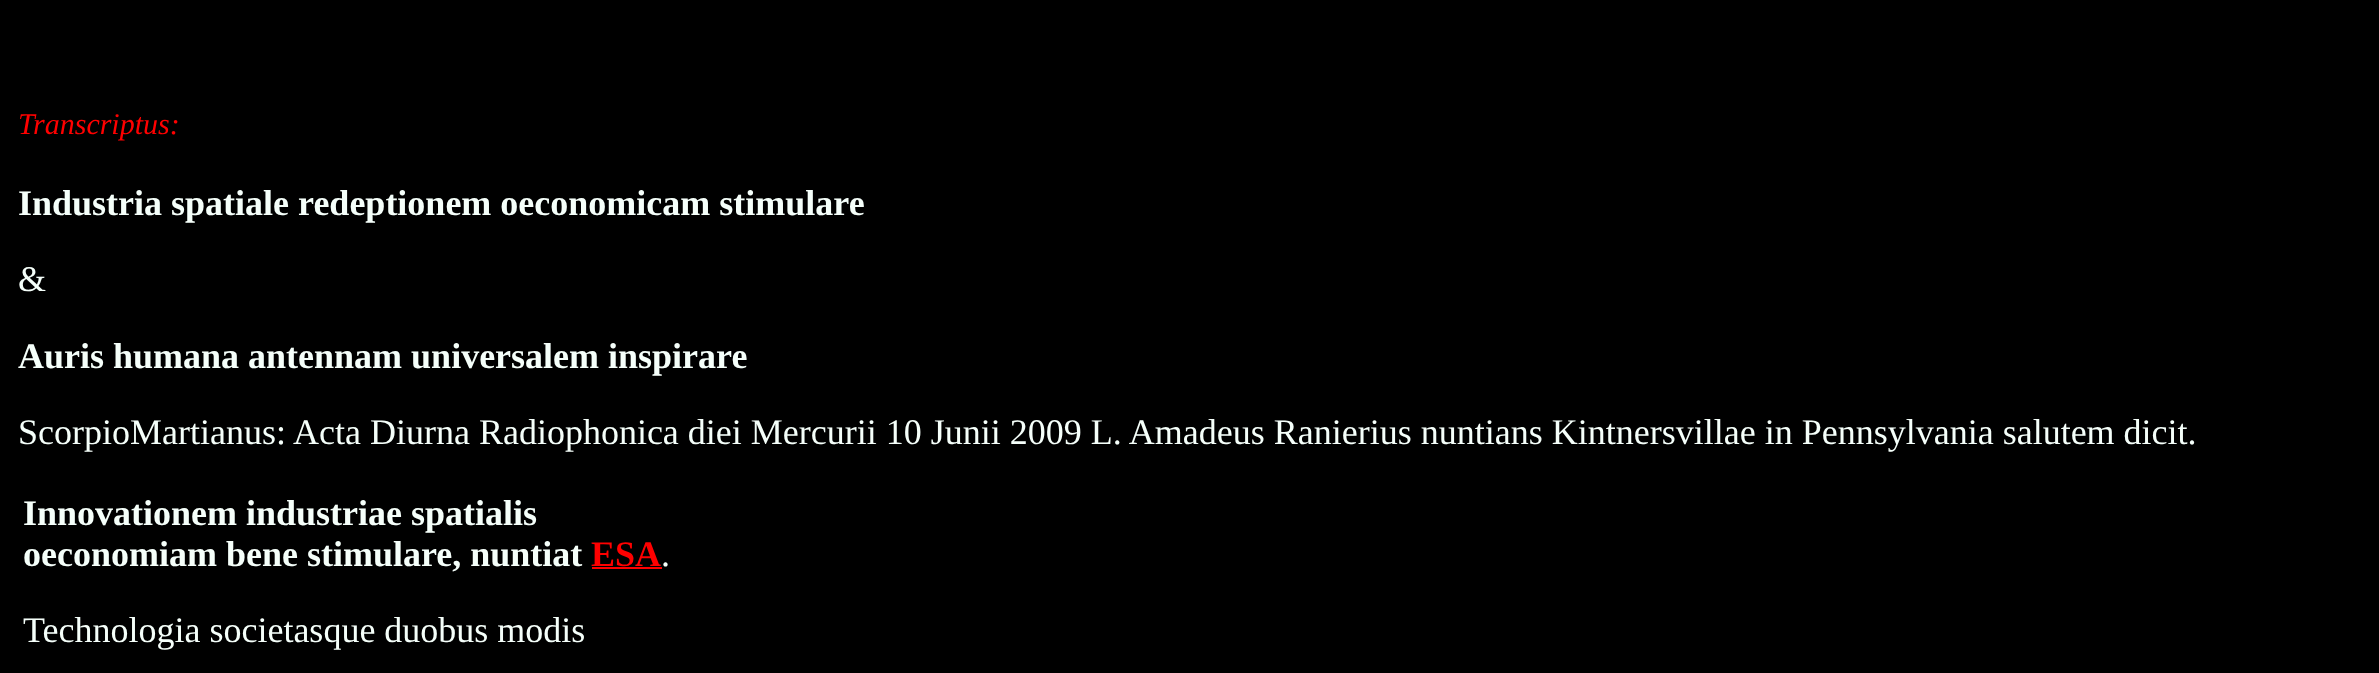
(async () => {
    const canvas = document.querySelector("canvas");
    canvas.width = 2379;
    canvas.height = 673;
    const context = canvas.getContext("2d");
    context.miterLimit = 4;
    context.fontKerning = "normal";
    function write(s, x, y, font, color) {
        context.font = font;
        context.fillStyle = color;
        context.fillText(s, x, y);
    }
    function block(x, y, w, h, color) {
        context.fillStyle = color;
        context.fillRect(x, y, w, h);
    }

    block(0, 0, 2379, 673, "rgb(0, 0, 0)");
    write("Transcriptus:", 18, 134, "italic 30px Liberation Serif", "rgb(255, 0, 0)");
    write("Industria spatiale redeptionem oeconomicam stimulare", 18, 215, "bold 36px Liberation Serif", "rgb(245, 255, 250)");
    write("&", 18, 291, "36px Liberation Serif", "rgb(245, 255, 250)");
    write("Auris humana antennam universalem inspirare", 18, 368, "bold 36px Liberation Serif", "rgb(245, 255, 250)");
    write("ScorpioMartianus: Acta Diurna Radiophonica diei Mercurii 10 Junii 2009 L. Amadeus Ranierius nuntians Kintnersvillae in Pennsylvania salutem dicit.", 18, 444, "36px Liberation Serif", "rgb(245, 255, 250)");
    write("Innovationem industriae spatialis", 23, 525, "bold 36px Liberation Serif", "rgb(245, 255, 250)");
    write("oeconomiam bene stimulare, nuntiat", 23, 566, "bold 36px Liberation Serif", "rgb(245, 255, 250)");
    write("ESA", 591, 566, "bold 36px Liberation Serif", "rgb(255, 0, 0)");
    block(592, 567, 70, 2, "rgb(255, 0, 0)");
    write(".", 661, 566, "36px Liberation Serif", "rgb(245, 255, 250)");
    write("Technologia societasque duobus modis", 23, 642, "36px Liberation Serif", "rgb(245, 255, 250)");
})();
